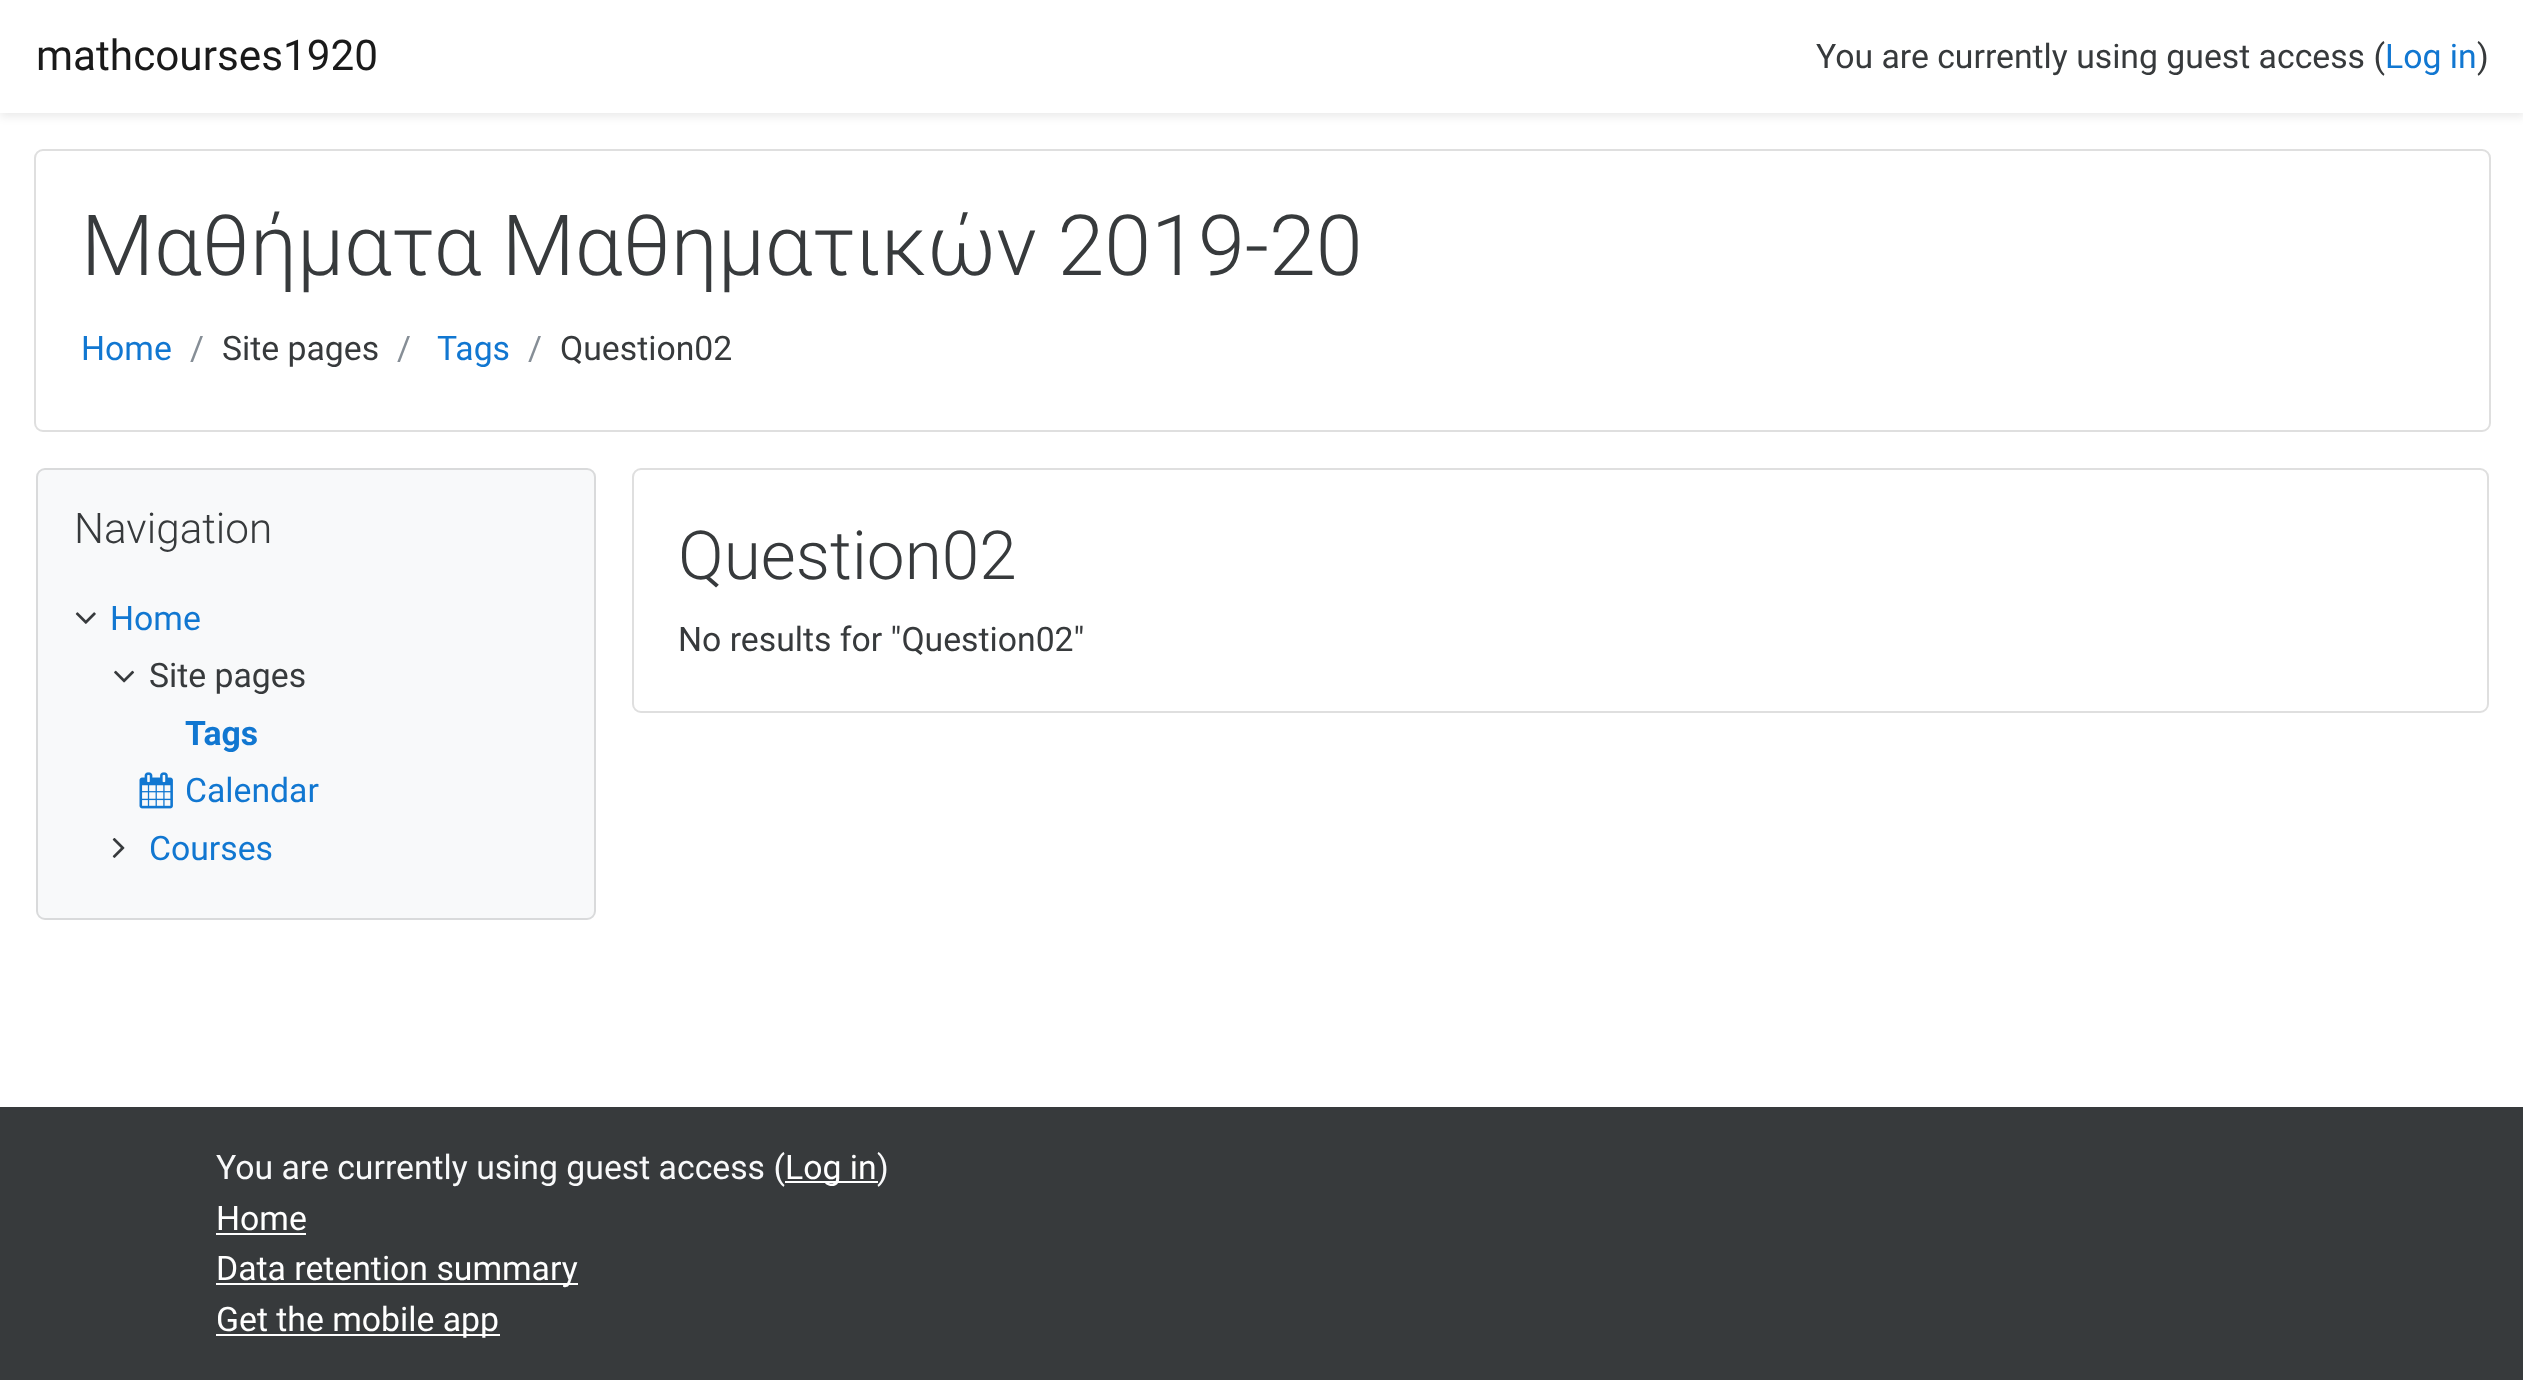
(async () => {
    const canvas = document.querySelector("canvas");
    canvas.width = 2523;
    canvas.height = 1380;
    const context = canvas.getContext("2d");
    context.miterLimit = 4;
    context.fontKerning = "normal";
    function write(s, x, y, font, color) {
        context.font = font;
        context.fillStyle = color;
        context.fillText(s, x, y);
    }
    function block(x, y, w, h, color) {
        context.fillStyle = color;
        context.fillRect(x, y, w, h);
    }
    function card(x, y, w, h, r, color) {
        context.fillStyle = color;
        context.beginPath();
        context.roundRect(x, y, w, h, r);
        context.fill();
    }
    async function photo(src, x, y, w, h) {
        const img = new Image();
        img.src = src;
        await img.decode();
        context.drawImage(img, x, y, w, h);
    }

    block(0, 0, 2523, 1380, "rgb(255, 255, 255)");
    context.fillStyle = "rgba(0, 0, 0, 0.08)";
    context.filter = "blur(4.5px)";
    context.beginPath();
    context.rect(0, 5, 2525, 112);
    context.fill();
    context.filter = "none";
    block(0, 0, 2523, 113, "rgb(255, 255, 255)");
    write("mathcourses1920", 36, 70, "42.25px Roboto", "rgb(26, 26, 26)");
    write("You are currently using guest access (", 1816, 68, "33.75px Roboto", "rgb(55, 58, 60)");
    write("Log in", 2385, 68, "33.75px Roboto", "rgb(17, 119, 209)");
    write(")", 2477, 68, "33.75px Roboto", "rgb(55, 58, 60)");
    context.beginPath();
    context.roundRect(35, 150, 2455, 281, 8);
    context.strokeStyle = "rgb(223, 223, 223)";
    context.lineWidth = 2;
    context.stroke();
    write("Μαθήματα Μαθηματικών 2019-20", 81, 275, "300 84.4px Roboto", "rgb(55, 58, 60)");
    write("Home", 81, 360, "33.75px Roboto", "rgb(17, 119, 209)");
    write("/", 190, 360, "33.75px Roboto", "rgb(134, 142, 150)");
    write("Site pages", 222, 360, "33.75px Roboto", "rgb(55, 58, 60)");
    write("/", 397, 360, "33.75px Roboto", "rgb(134, 142, 150)");
    write("Tags", 437, 360, "33.75px Roboto", "rgb(17, 119, 209)");
    write("/", 528, 360, "33.75px Roboto", "rgb(134, 142, 150)");
    write("Question02", 560, 360, "33.75px Roboto", "rgb(55, 58, 60)");
    card(36, 468, 560, 452, 9, "rgb(248, 249, 250)");
    context.beginPath();
    context.roundRect(37, 469, 558, 450, 8);
    context.strokeStyle = "rgba(0, 0, 0, 0.12)";
    context.stroke();
    write("Navigation", 74, 543, "300 42.25px Roboto", "rgb(55, 58, 60)");
    await photo("media/1.png", 75, 612, 21, 12);
    write("Home", 110, 630, "33.75px Roboto", "rgb(17, 119, 209)");
    await photo("media/2.png", 114, 670, 21, 13);
    write("Site pages", 149, 687, "33.75px Roboto", "rgb(55, 58, 60)");
    write("Tags", 185, 745, "bold 33.75px Roboto", "rgb(17, 119, 209)");
    await photo("media/3.png", 139, 772, 34, 37);
    write("Calendar", 185, 802, "33.75px Roboto", "rgb(17, 119, 209)");
    await photo("media/4.png", 112, 838, 13, 20);
    write("Courses", 149, 860, "33.75px Roboto", "rgb(17, 119, 209)");
    context.beginPath();
    context.roundRect(633, 469, 1855, 243, 8);
    context.strokeStyle = "rgb(223, 223, 223)";
    context.stroke();
    write("Question02", 678, 579, "300 67.5px Roboto", "rgb(55, 58, 60)");
    write("No results for \"Question02\"", 678, 651, "33.75px Roboto", "rgb(55, 58, 60)");
    block(0, 1107, 2523, 273, "rgb(55, 58, 60)");
    write("You are currently using guest access (", 216, 1179, "33.75px Roboto", "rgb(248, 249, 250)");
    block(785, 1181, 93, 2, "rgb(255, 255, 255)");
    write("Log in", 785, 1179, "33.75px Roboto", "rgb(255, 255, 255)");
    write(")", 877, 1179, "33.75px Roboto", "rgb(248, 249, 250)");
    write("Home", 216, 1230, "33.75px Roboto", "rgb(255, 255, 255)");
    block(216, 1233, 90, 2, "rgb(255, 255, 255)");
    block(216, 1283, 362, 2, "rgb(255, 255, 255)");
    write("Data retention summary", 216, 1280, "33.75px Roboto", "rgb(255, 255, 255)");
    block(216, 1334, 284, 2, "rgb(255, 255, 255)");
    write("Get the mobile app", 216, 1331, "33.75px Roboto", "rgb(255, 255, 255)");
})();
